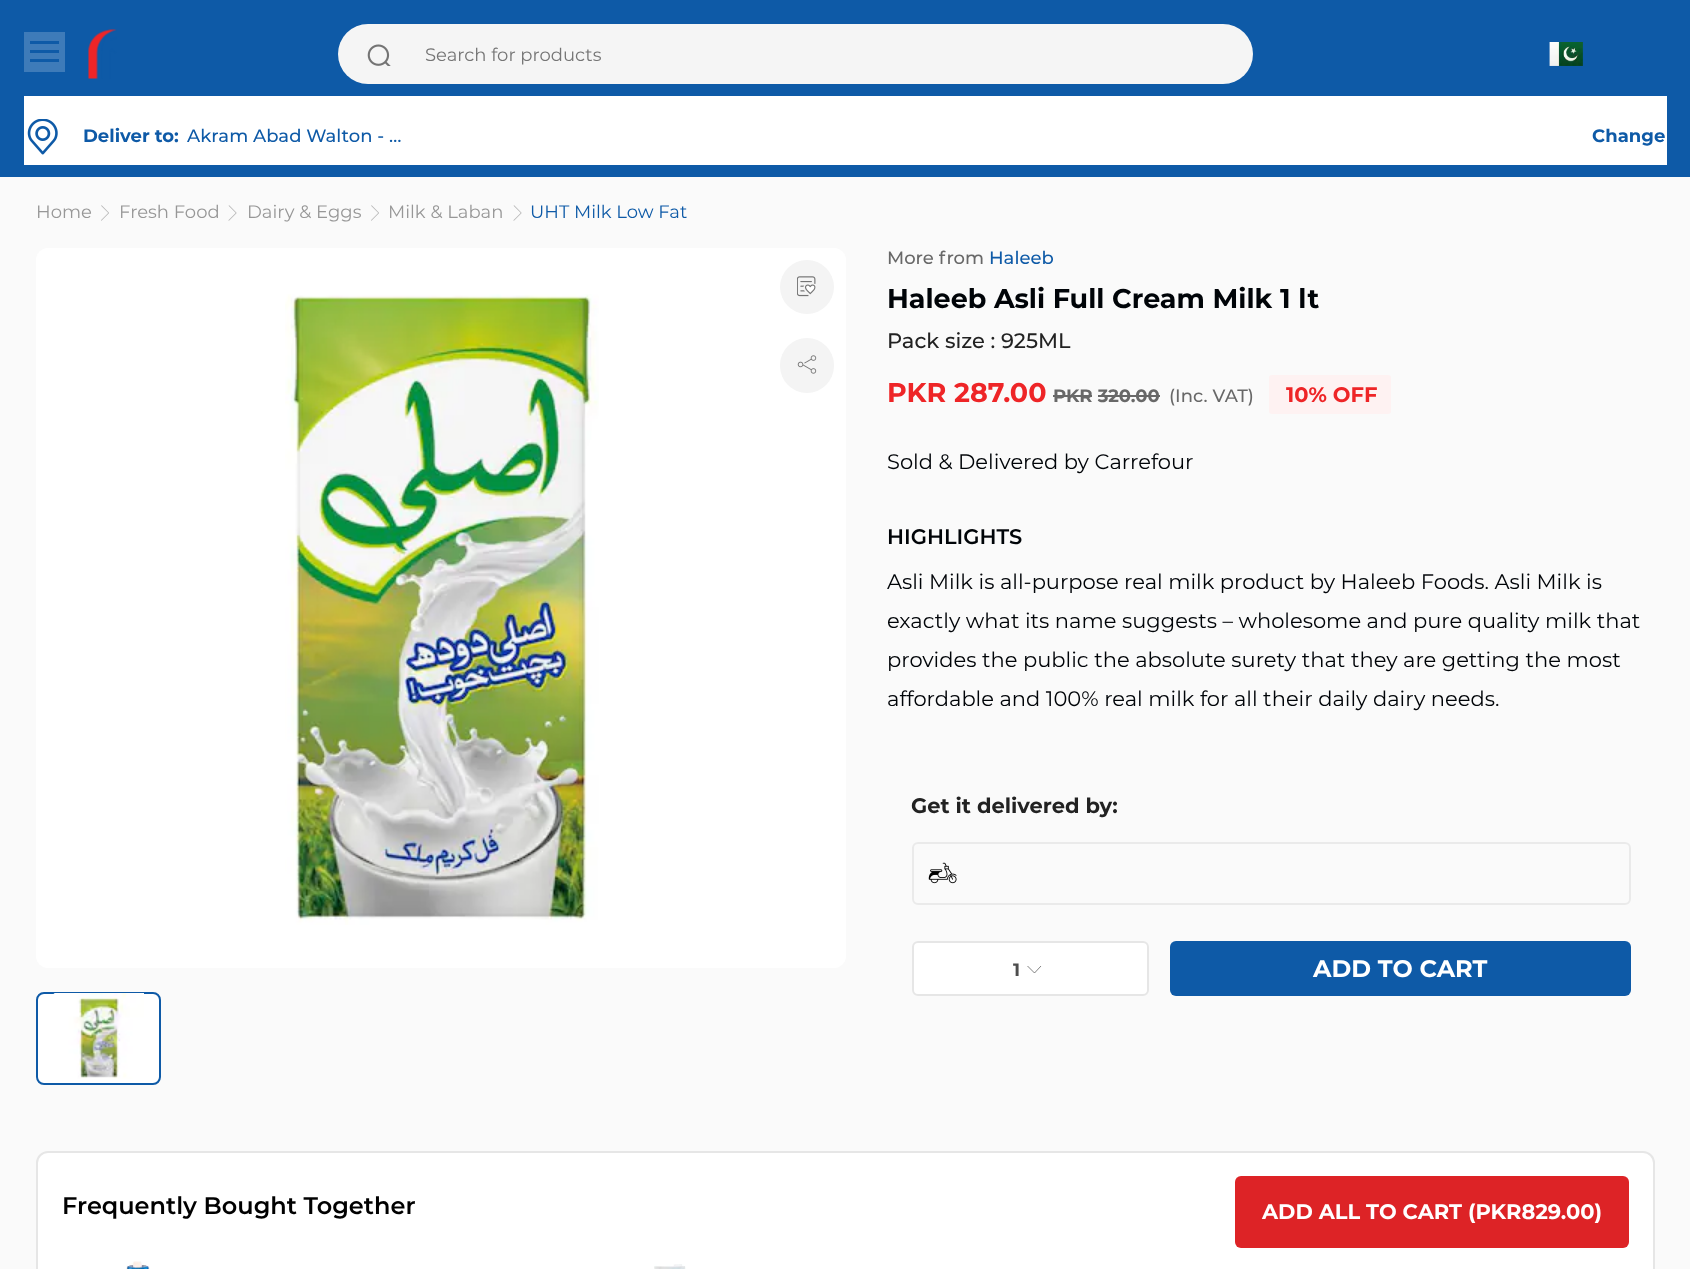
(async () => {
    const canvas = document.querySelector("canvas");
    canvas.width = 1690;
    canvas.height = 1269;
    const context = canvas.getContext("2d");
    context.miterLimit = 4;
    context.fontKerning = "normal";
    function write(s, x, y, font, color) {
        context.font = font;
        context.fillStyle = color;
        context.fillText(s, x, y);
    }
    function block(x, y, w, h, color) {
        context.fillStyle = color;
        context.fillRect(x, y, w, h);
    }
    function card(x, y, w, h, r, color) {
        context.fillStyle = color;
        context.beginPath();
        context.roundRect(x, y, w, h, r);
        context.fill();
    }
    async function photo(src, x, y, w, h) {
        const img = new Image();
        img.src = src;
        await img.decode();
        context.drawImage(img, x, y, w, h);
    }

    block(0, 0, 1690, 1269, "rgb(250, 250, 250)");
    block(0, 0, 1690, 177, "rgb(14, 90, 167)");
    block(24, 32, 41, 40, "rgb(62, 123, 185)");
    block(30, 50, 29, 3, "rgb(14, 90, 167)");
    block(30, 41, 29, 3, "rgb(14, 90, 167)");
    block(30, 59, 29, 3, "rgb(14, 90, 167)");
    await photo("media/1.png", 88, 29, 29, 50);
    card(338, 24, 915, 60, 30, "rgb(245, 245, 245)");
    await photo("media/2.png", 367, 44, 24, 22);
    write("Search for products", 425, 61, "18px Montserrat", "rgb(117, 117, 117)");
    await photo("media/3.png", 1549, 42, 34, 24);
    block(24, 96, 1643, 69, "rgb(255, 255, 255)");
    await photo("media/4.png", 27, 119, 31, 36);
    write("Deliver to:", 83, 142, "bold 18px Montserrat", "rgb(14, 90, 167)");
    write("Akram Abad Walton - …", 187, 142, "500 18px Montserrat", "rgb(14, 90, 167)");
    write("Change", 1592, 142, "bold 18px Montserrat", "rgb(14, 90, 167)");
    write("Home", 36, 218, "18px Montserrat", "rgb(151, 151, 151)");
    await photo("media/5.png", 101, 205, 8, 16);
    write("Fresh Food", 119, 218, "18px Montserrat", "rgb(151, 151, 151)");
    await photo("media/6.png", 228, 205, 9, 16);
    write("Dairy & Eggs", 247, 218, "18px Montserrat", "rgb(151, 151, 151)");
    await photo("media/5.png", 371, 205, 8, 16);
    write("Milk & Laban", 388, 218, "18px Montserrat", "rgb(151, 151, 151)");
    await photo("media/6.png", 513, 205, 9, 16);
    write("UHT Milk Low Fat", 530, 218, "18px Montserrat", "rgb(14, 90, 167)");
    card(36, 248, 810, 720, 12, "rgb(255, 255, 255)");
    await photo("media/7.png", 285, 294, 314, 631);
    context.beginPath();
    context.roundRect(37, 993, 123, 91, 7);
    context.fill();
    context.strokeStyle = "rgb(14, 90, 167)";
    context.lineWidth = 2;
    context.stroke();
    await photo("media/8.png", 53, 993, 91, 86);
    context.fillStyle = "rgb(244, 244, 244)";
    context.beginPath();
    context.arc(807, 287, 27, 0, Math.PI * 2);
    context.fill();
    await photo("media/9.png", 797, 276, 19, 21);
    card(780, 338, 54, 55, 27, "rgb(244, 244, 244)");
    await photo("media/10.png", 797, 355, 20, 19);
    write("More from", 887, 264, "500 18px Montserrat", "rgb(104, 104, 104)");
    write("Haleeb", 989, 264, "500 18px Montserrat", "rgb(14, 90, 167)");
    write("Haleeb Asli Full Cream Milk 1 lt", 887, 308, "bold 27px Montserrat", "rgb(0, 4, 8)");
    write("Pack size : 925ML", 887, 348, "500 21px Montserrat", "rgb(34, 34, 34)");
    write("PKR 287.00", 887, 402, "bold 27px Montserrat", "rgb(238, 37, 39)");
    write("PKR 320.00", 1053, 402, "bold 18px Montserrat", "rgb(104, 104, 104)");
    block(1053, 395, 39, 2, "rgb(104, 104, 104)");
    block(1098, 395, 62, 2, "rgb(104, 104, 104)");
    write("(Inc. VAT)", 1169, 402, "500 18px Montserrat", "rgb(104, 104, 104)");
    context.fillStyle = "rgb(254, 242, 242)";
    context.beginPath();
    context.roundRect(1269, 375, 18, 39, [3, 0, 0, 3]);
    context.fill();
    block(1287, 375, 41, 39, "rgb(254, 242, 242)");
    context.beginPath();
    context.roundRect(1328, 375, 63, 39, [0, 3, 3, 0]);
    context.fill();
    write("10% OFF", 1286, 402, "bold 21px Montserrat", "rgb(238, 37, 39)");
    write("Sold & Delivered by Carrefour", 887, 469, "21px Montserrat", "rgb(0, 4, 8)");
    write("HIGHLIGHTS", 887, 544, "600 21px Montserrat", "rgb(0, 4, 8)");
    write("Asli Milk is all-purpose real milk product by Haleeb Foods. Asli Milk is", 887, 589, "21px Montserrat", "rgb(0, 4, 8)");
    write("exactly what its name suggests – wholesome and pure quality milk that", 887, 628, "21px Montserrat", "rgb(0, 4, 8)");
    write("provides the public the absolute surety that they are getting the most", 887, 667, "21px Montserrat", "rgb(0, 4, 8)");
    write("affordable and 100% real milk for all their daily dairy needs.", 887, 706, "21px Montserrat", "rgb(0, 4, 8)");
    write("Get it delivered by:", 911, 813, "bold 21px Montserrat", "rgb(34, 34, 34)");
    context.beginPath();
    context.roundRect(913, 843, 717, 61, 5);
    context.strokeStyle = "rgb(234, 234, 234)";
    context.stroke();
    await photo("media/11.png", 928, 862, 29, 22);
    context.fillStyle = "rgb(255, 255, 255)";
    context.beginPath();
    context.roundRect(913, 942, 235, 53, 5);
    context.fill();
    context.strokeStyle = "rgb(230, 230, 230)";
    context.stroke();
    write("1", 1013, 976, "bold 18px Montserrat", "rgb(77, 77, 77)");
    context.beginPath();
    context.moveTo(1041, 966);
    context.lineTo(1034.5, 973);
    context.lineTo(1027.5, 966);
    context.strokeStyle = "rgb(77, 77, 77)";
    context.lineWidth = 0.7;
    context.lineJoin = "round";
    context.stroke();
    card(1170, 941, 461, 55, 6, "rgb(14, 90, 167)");
    write("ADD TO CART", 1313, 977, "bold 24px Montserrat", "rgb(255, 255, 255)");
    context.beginPath();
    context.roundRect(37, 1152, 1617, 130, 11);
    context.fill();
    context.strokeStyle = "rgb(230, 230, 230)";
    context.lineWidth = 2;
    context.lineJoin = "miter";
    context.stroke();
    write("Frequently Bought Together", 62, 1214, "600 24px Montserrat", "rgb(0, 0, 0)");
    card(1235, 1176, 394, 72, 6, "rgb(221, 35, 38)");
    write("ADD ALL TO CART (PKR829.00)", 1262, 1219, "bold 21px Montserrat", "rgb(255, 255, 255)");
    await photo("media/12.png", 126, 1261, 24, 8);
    await photo("media/13.png", 654, 1264, 32, 5);
})();
